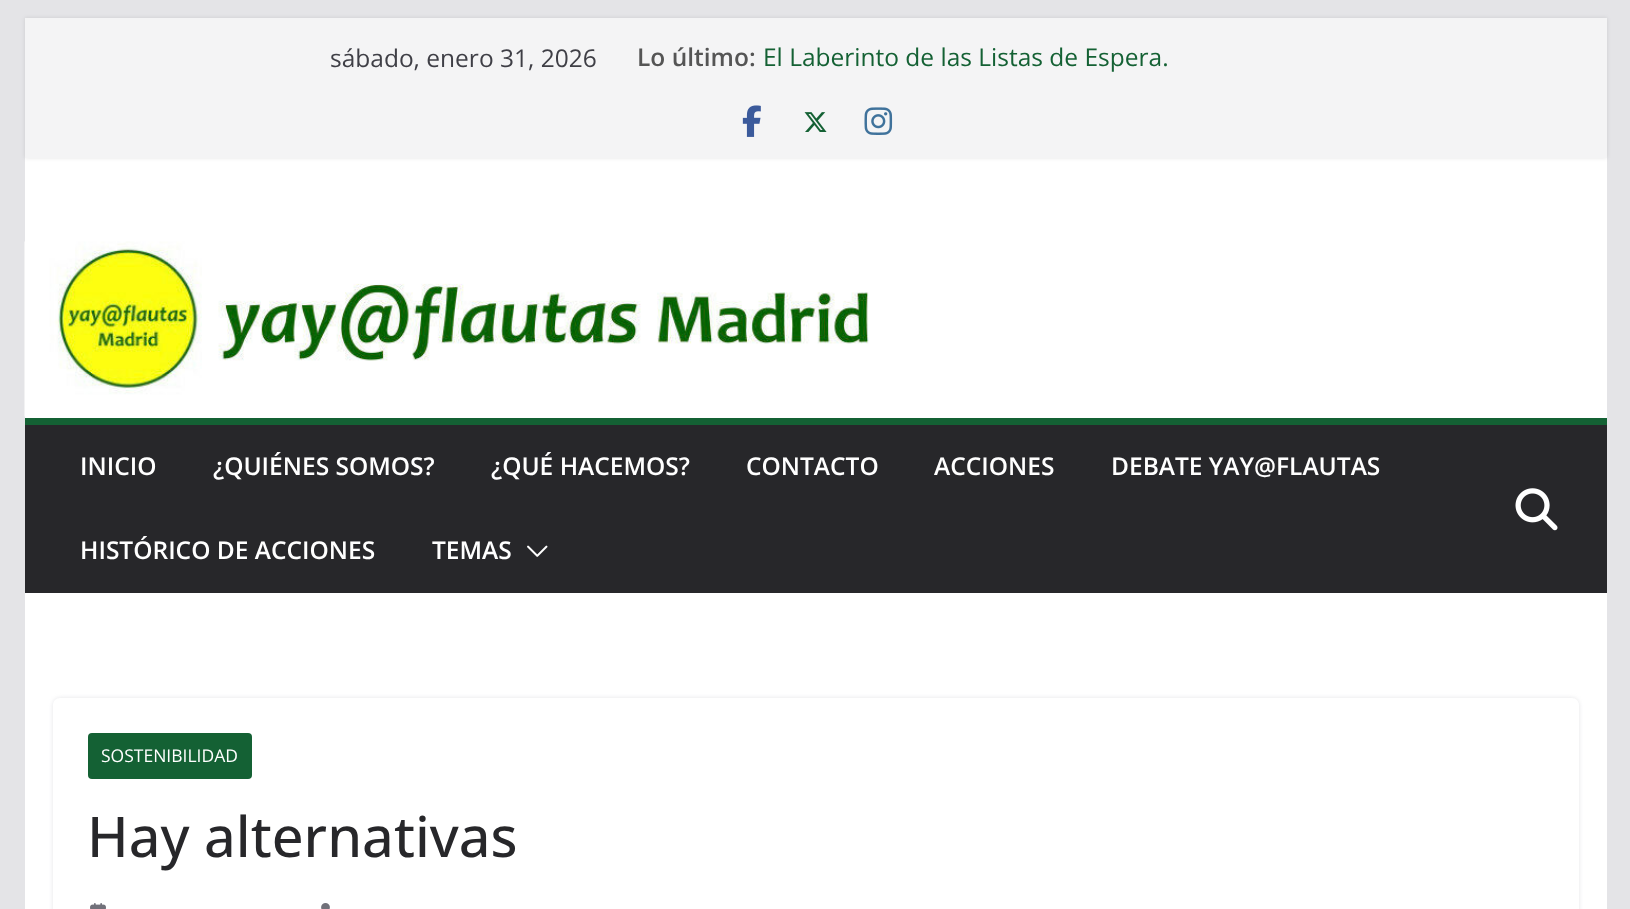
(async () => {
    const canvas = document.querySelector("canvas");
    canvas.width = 1630;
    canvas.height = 909;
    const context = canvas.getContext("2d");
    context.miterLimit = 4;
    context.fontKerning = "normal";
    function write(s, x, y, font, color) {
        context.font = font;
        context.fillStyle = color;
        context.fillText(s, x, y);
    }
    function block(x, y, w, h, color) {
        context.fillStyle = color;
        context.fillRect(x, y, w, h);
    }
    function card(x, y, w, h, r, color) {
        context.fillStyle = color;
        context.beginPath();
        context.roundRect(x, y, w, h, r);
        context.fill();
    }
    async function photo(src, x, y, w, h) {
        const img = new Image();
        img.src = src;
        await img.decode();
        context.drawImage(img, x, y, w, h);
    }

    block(0, 0, 1630, 909, "rgb(228, 228, 231)");
    block(25, 158, 1582, 260, "rgb(255, 255, 255)");
    context.fillStyle = "rgba(0, 0, 0, 0.1)";
    context.filter = "blur(2px)";
    context.beginPath();
    context.rect(25, 18, 1582, 140);
    context.fill();
    context.filter = "none";
    block(25, 18, 1582, 140, "rgb(244, 244, 245)");
    write("sábado, enero 31, 2026", 330, 67, "24.5px Open Sans", "rgb(63, 63, 70)");
    write("Lo último:", 637, 66, "600 24.5px Open Sans", "rgb(85, 85, 85)");
    write("El Laberinto de las Listas de Espera.", 763, 66, "24.5px Open Sans", "rgb(20, 97, 52)");
    await photo("media/1.png", 742, 105, 19, 32);
    await photo("media/2.png", 804, 112, 23, 20);
    await photo("media/3.png", 864, 107, 29, 28);
    await photo("media/4.png", 24, 241, 845, 176);
    block(25, 425, 1582, 168, "rgb(39, 39, 42)");
    block(25, 418, 1582, 7, "rgb(20, 97, 52)");
    write("INICIO", 80, 475, "600 24.5px Open Sans", "rgb(255, 255, 255)");
    write("¿QUIÉNES SOMOS?", 213, 475, "600 24.5px Open Sans", "rgb(255, 255, 255)");
    write("¿QUÉ HACEMOS?", 491, 475, "600 24.5px Open Sans", "rgb(255, 255, 255)");
    write("CONTACTO", 746, 475, "600 24.5px Open Sans", "rgb(255, 255, 255)");
    write("ACCIONES", 934, 475, "600 24.5px Open Sans", "rgb(255, 255, 255)");
    write("DEBATE YAY@FLAUTAS", 1111, 475, "600 24.5px Open Sans", "rgb(255, 255, 255)");
    write("HISTÓRICO DE ACCIONES", 80, 559, "600 24.5px Open Sans", "rgb(255, 255, 255)");
    write("TEMAS", 432, 559, "600 24.5px Open Sans", "rgb(255, 255, 255)");
    await photo("media/5.png", 527, 545, 21, 12);
    await photo("media/6.png", 1515, 488, 43, 43);
    block(25, 593, 1582, 316, "rgb(255, 255, 255)");
    context.save();
    context.beginPath();
    context.moveTo(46, 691);
    context.lineTo(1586, 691);
    context.lineTo(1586, 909);
    context.lineTo(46, 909);
    context.closePath();
    context.moveTo(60, 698);
    context.lineTo(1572, 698);
    context.bezierCurveTo(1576, 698, 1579, 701, 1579, 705);
    context.lineTo(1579, 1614);
    context.bezierCurveTo(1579, 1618, 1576, 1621, 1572, 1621);
    context.lineTo(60, 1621);
    context.bezierCurveTo(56, 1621, 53, 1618, 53, 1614);
    context.lineTo(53, 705);
    context.bezierCurveTo(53, 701, 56, 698, 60, 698);
    context.closePath();
    context.clip("evenodd");
    context.fillStyle = "rgb(228, 228, 231)";
    context.filter = "blur(2px)";
    context.beginPath();
    context.roundRect(53, 698, 1526, 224, 7);
    context.fill();
    context.filter = "none";
    context.restore();
    card(88, 733, 164, 46, 4, "rgb(20, 97, 52)");
    write("SOSTENIBILIDAD", 101, 762, "17.5px Open Sans", "rgb(255, 255, 255)");
    write("Hay alternativas", 87, 857, "500 56px Open Sans", "rgb(39, 39, 42)");
    await photo("media/7.png", 90, 903, 16, 6);
    await photo("media/8.png", 321, 903, 9, 6);
})();
